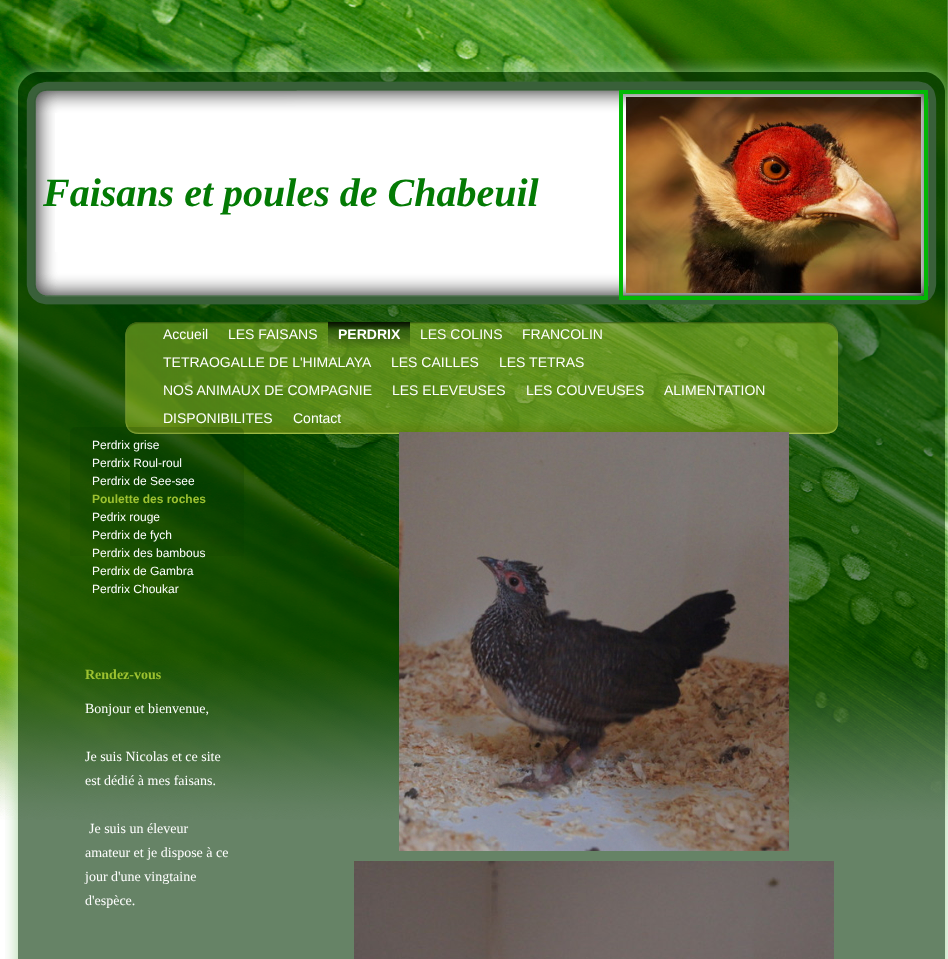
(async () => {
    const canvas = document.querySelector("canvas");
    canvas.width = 948;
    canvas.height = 959;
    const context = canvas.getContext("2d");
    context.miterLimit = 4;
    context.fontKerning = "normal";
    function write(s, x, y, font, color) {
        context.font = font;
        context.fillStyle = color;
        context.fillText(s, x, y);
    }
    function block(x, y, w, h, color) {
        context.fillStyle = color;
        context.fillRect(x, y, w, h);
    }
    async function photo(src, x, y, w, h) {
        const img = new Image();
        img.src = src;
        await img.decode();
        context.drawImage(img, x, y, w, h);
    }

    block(0, 0, 948, 959, "rgb(255, 255, 255)");
    await photo("media/1.png", 0, 0, 948, 820);
    block(35, 90, 889, 206, "rgb(255, 255, 255)");
    await photo("media/2.png", 4, 58, 944, 55);
    await photo("media/3.png", 4, 113, 51, 139);
    write("Faisans et poules de Chabeuil", 43, 206, "italic bold 40px Liberation Serif", "rgb(3, 122, 4)");
    await photo("media/5.png", 921, 113, 27, 139);
    await photo("media/6.png", 4, 252, 944, 60);
    context.strokeStyle = "rgb(2, 184, 4)";
    context.lineWidth = 4;
    context.strokeRect(621, 92, 305, 206);
    await photo("media/4.png", 626, 97, 295, 196);
    await photo("media/7.png", 4, 312, 944, 370);
    await photo("media/8.png", 125, 322, 713, 14);
    await photo("media/9.png", 125, 336, 714, 98);
    write("Accueil", 163, 339, "14px Liberation Sans", "rgb(255, 255, 255)");
    write("LES FAISANS", 228, 339, "14px Liberation Sans", "rgb(255, 255, 255)");
    await photo("media/10.png", 328, 322, 82, 26);
    write("PERDRIX", 338, 339, "bold 14px Liberation Sans", "rgb(255, 255, 255)");
    write("LES COLINS", 420, 339, "14px Liberation Sans", "rgb(255, 255, 255)");
    write("FRANCOLIN", 522, 339, "14px Liberation Sans", "rgb(255, 255, 255)");
    write("TETRAOGALLE DE L'HIMALAYA", 163, 367, "14px Liberation Sans", "rgb(255, 255, 255)");
    write("LES CAILLES", 391, 367, "14px Liberation Sans", "rgb(255, 255, 255)");
    write("LES TETRAS", 499, 367, "14px Liberation Sans", "rgb(255, 255, 255)");
    write("NOS ANIMAUX DE COMPAGNIE", 163, 395, "14px Liberation Sans", "rgb(255, 255, 255)");
    write("LES ELEVEUSES", 392, 395, "14px Liberation Sans", "rgb(255, 255, 255)");
    write("LES COUVEUSES", 526, 395, "14px Liberation Sans", "rgb(255, 255, 255)");
    write("ALIMENTATION", 664, 395, "14px Liberation Sans", "rgb(255, 255, 255)");
    write("DISPONIBILITES", 163, 423, "14px Liberation Sans", "rgb(255, 255, 255)");
    write("Contact", 293, 423, "14px Liberation Sans", "rgb(255, 255, 255)");
    await photo("media/11.png", 5, 682, 943, 277);
    await photo("media/12.png", 70, 427, 174, 129);
    await photo("media/13.png", 399, 432, 390, 419);
    await photo("media/14.png", 354, 861, 480, 98);
    write("Perdrix grise", 92, 449, "12px Liberation Sans", "rgb(255, 255, 255)");
    write("Perdrix Roul-roul", 92, 467, "12px Liberation Sans", "rgb(255, 255, 255)");
    write("Perdrix de See-see", 92, 485, "12px Liberation Sans", "rgb(255, 255, 255)");
    write("Poulette des roches", 92, 503, "bold 12px Liberation Sans", "rgb(157, 194, 48)");
    write("Pedrix rouge", 92, 521, "12px Liberation Sans", "rgb(255, 255, 255)");
    write("Perdrix de fych", 92, 539, "12px Liberation Sans", "rgb(255, 255, 255)");
    write("Perdrix des bambous", 92, 557, "12px Liberation Sans", "rgb(255, 255, 255)");
    write("Perdrix de Gambra", 92, 575, "12px Liberation Sans", "rgb(255, 255, 255)");
    write("Perdrix Choukar", 92, 593, "12px Liberation Sans", "rgb(255, 255, 255)");
    write("Rendez-vous", 85, 679, "bold 14px Liberation Serif", "rgb(157, 194, 48)");
    write("Bonjour et bienvenue,", 85, 713, "14px Liberation Serif", "rgb(255, 255, 255)");
    write("Je suis Nicolas et ce site", 85, 761, "14px Liberation Serif", "rgb(255, 255, 255)");
    write("est dédié à mes faisans.", 85, 785, "14px Liberation Serif", "rgb(255, 255, 255)");
    write("Je suis un éleveur", 89, 833, "14px Liberation Serif", "rgb(255, 255, 255)");
    write("amateur et je dispose à ce", 85, 857, "14px Liberation Serif", "rgb(255, 255, 255)");
    write("jour d'une vingtaine", 85, 881, "14px Liberation Serif", "rgb(255, 255, 255)");
    write("d'espèce.", 85, 905, "14px Liberation Serif", "rgb(255, 255, 255)");
})();
